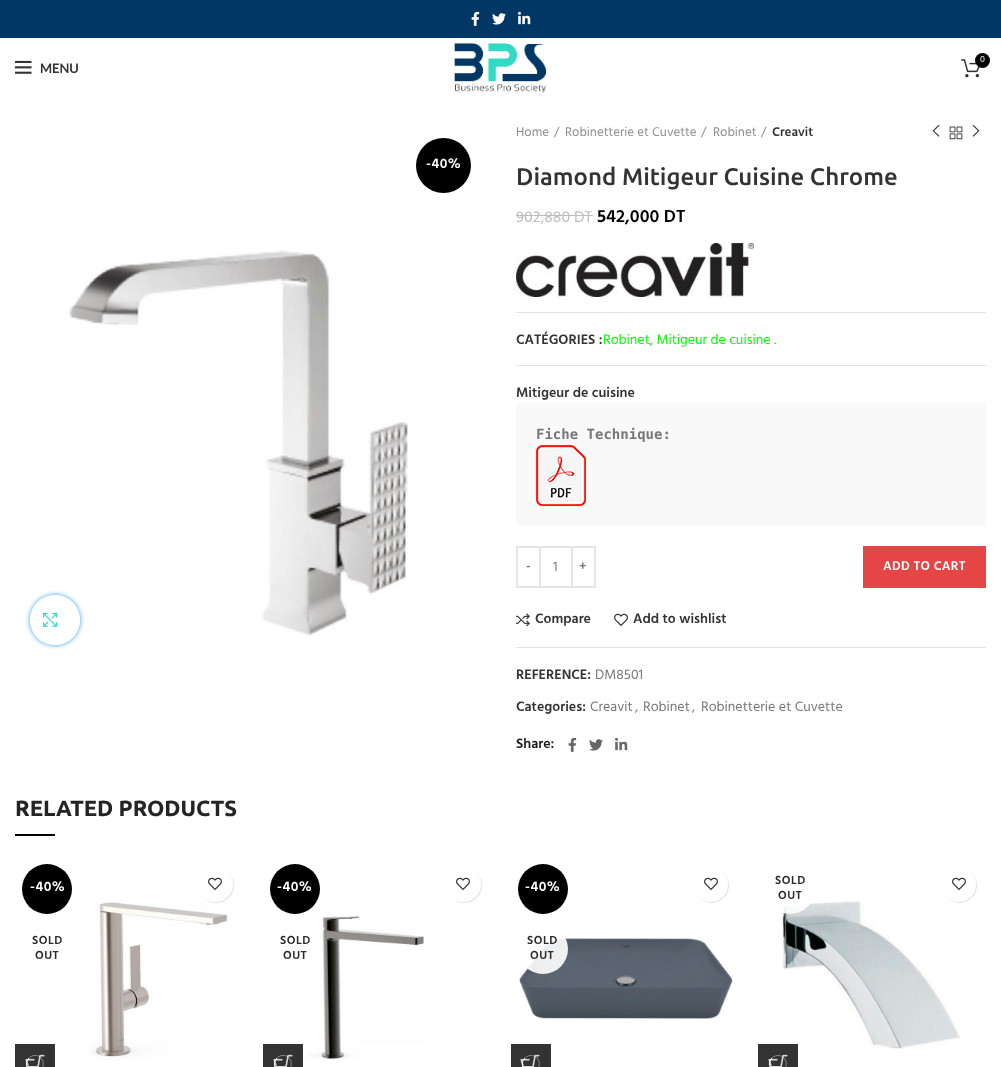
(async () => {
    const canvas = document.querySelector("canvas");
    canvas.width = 1001;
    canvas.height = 1067;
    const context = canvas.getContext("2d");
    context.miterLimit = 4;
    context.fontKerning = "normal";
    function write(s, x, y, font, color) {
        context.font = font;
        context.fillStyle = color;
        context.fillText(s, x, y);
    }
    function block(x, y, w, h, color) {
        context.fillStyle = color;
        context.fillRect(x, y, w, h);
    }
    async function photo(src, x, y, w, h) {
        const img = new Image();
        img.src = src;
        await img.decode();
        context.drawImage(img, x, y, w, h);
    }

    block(0, 0, 1001, 1067, "rgb(255, 255, 255)");
    block(0, 0, 1001, 38, "rgb(0, 55, 100)");
    await photo("media/1.png", 471, 11, 9, 15);
    await photo("media/2.png", 492, 13, 14, 12);
    await photo("media/3.png", 518, 11, 13, 14);
    await photo("media/4.png", 454, 43, 93, 50);
    await photo("media/5.png", 961, 59, 19, 19);
    context.fillStyle = "rgb(0, 0, 0)";
    context.beginPath();
    context.arc(982.5, 60.5, 7.5, 0, Math.PI * 2);
    context.fill();
    write("0", 980, 62, "9px Hind", "rgb(255, 255, 255)");
    await photo("media/6.png", 15, 60, 17, 14);
    write("MENU", 40, 73, "bold 13px Lato", "rgb(51, 51, 51)");
    context.fillStyle = "rgb(0, 0, 0)";
    context.beginPath();
    context.arc(443.5, 165.5, 27.5, 0, Math.PI * 2);
    context.fill();
    context.letterSpacing = "0.5px";
    write("-40%", 426, 168, "600 14px Hind", "rgb(255, 255, 255)");
    await photo("media/8.png", 69, 250, 339, 386);
    context.save();
    context.beginPath();
    context.moveTo(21, 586);
    context.lineTo(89, 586);
    context.lineTo(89, 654);
    context.lineTo(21, 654);
    context.closePath();
    context.moveTo(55, 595);
    context.bezierCurveTo(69, 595, 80, 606, 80, 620);
    context.bezierCurveTo(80, 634, 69, 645, 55, 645);
    context.bezierCurveTo(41, 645, 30, 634, 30, 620);
    context.bezierCurveTo(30, 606, 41, 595, 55, 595);
    context.closePath();
    context.clip("evenodd");
    context.fillStyle = "rgb(33, 150, 243)";
    context.filter = "blur(2.5px)";
    context.beginPath();
    context.roundRect(30, 595, 50, 50, 25);
    context.fill();
    context.filter = "none";
    context.restore();
    context.fillStyle = "rgba(255, 255, 255, 0.9)";
    context.beginPath();
    context.arc(55, 620, 25, 0, Math.PI * 2);
    context.fill();
    await photo("media/7.png", 43, 612, 14, 15);
    context.letterSpacing = "0px";
    write("Home", 516, 136, "13px Hind", "rgb(142, 142, 142)");
    write("/", 554, 136, "13px Hind", "rgb(142, 142, 142)");
    write("Robinetterie et Cuvette", 565, 136, "13px Hind", "rgb(142, 142, 142)");
    write("/", 701, 136, "13px Hind", "rgb(142, 142, 142)");
    write("Robinet", 713, 136, "13px Hind", "rgb(142, 142, 142)");
    write("/", 761, 136, "13px Hind", "rgb(142, 142, 142)");
    write("Creavit", 772, 136, "600 13px Hind", "rgb(51, 51, 51)");
    await photo("media/9.png", 932, 124, 8, 13);
    await photo("media/10.png", 949, 126, 14, 14);
    await photo("media/11.png", 972, 124, 8, 13);
    write("Diamond Mitigeur Cuisine Chrome", 516, 185, "500 24px Ubuntu", "rgb(51, 51, 51)");
    write("902,880 DT", 516, 222, "16px Hind", "rgb(189, 189, 189)");
    block(516, 215, 77, 1, "rgb(189, 189, 189)");
    write("542,000 DT", 597, 222, "600 18px Hind", "rgb(0, 0, 0)");
    await photo("media/12.png", 516, 243, 238, 54);
    block(516, 312, 470, 1, "rgb(228, 228, 228)");
    write("CATÉGORIES :", 516, 344, "600 14px Hind", "rgb(51, 51, 51)");
    write("Robinet, Mitigeur de cuisine .", 603, 344, "14px Hind", "rgb(0, 255, 0)");
    block(516, 365, 470, 1, "rgb(228, 228, 228)");
    write("Mitigeur de cuisine", 516, 397, "600 14px Hind", "rgb(51, 51, 51)");
    block(516, 403, 470, 123, "rgb(249, 249, 249)");
    write("Fiche Technique:", 536, 439, "bold 14px DejaVu Sans Mono", "rgb(119, 119, 119)");
    await photo("media/13.png", 536, 445, 50, 61);
    context.strokeStyle = "rgb(230, 230, 230)";
    context.lineWidth = 2;
    context.strokeRect(517, 547, 23, 40);
    context.letterSpacing = "0.25px";
    write("-", 526, 570, "600 13px Hind", "rgb(119, 119, 119)");
    block(541, 546, 30, 2, "rgb(230, 230, 230)");
    block(541, 586, 30, 2, "rgb(230, 230, 230)");
    context.letterSpacing = "0px";
    write("1", 553, 571, "14px Hind", "rgb(119, 119, 119)");
    context.strokeRect(572, 547, 23, 40);
    context.letterSpacing = "0.25px";
    write("+", 579, 570, "600 13px Hind", "rgb(119, 119, 119)");
    block(863, 546, 123, 42, "rgb(229, 69, 69)");
    write("ADD TO CART", 883, 570, "600 13px Hind", "rgb(255, 255, 255)");
    context.beginPath();
    context.moveTo(918, 561);
    context.bezierCurveTo(920, 559, 923, 558, 925.5, 558.5);
    context.bezierCurveTo(935.5, 560.5, 934, 575.5, 924, 575.5);
    context.bezierCurveTo(922, 575.5, 919.5, 574.5, 918, 573);
    context.strokeStyle = "rgb(229, 69, 69)";
    context.lineWidth = 1;
    context.stroke();
    await photo("media/14.png", 516, 613, 14, 14);
    context.letterSpacing = "0px";
    write("Compare", 535, 623, "600 14px Hind", "rgb(51, 51, 51)");
    await photo("media/15.png", 614, 613, 14, 13);
    write("Add to wishlist", 633, 623, "600 14px Hind", "rgb(51, 51, 51)");
    block(516, 647, 470, 1, "rgb(228, 228, 228)");
    write("REFERENCE:", 516, 679, "600 14px Hind", "rgb(51, 51, 51)");
    write("DM8501", 595, 679, "14px Hind", "rgb(119, 119, 119)");
    write("Categories:", 516, 711, "600 14px Hind", "rgb(51, 51, 51)");
    write("Creavit", 590, 711, "14px Hind", "rgb(119, 119, 119)");
    write(",", 635, 711, "14px Hind", "rgb(119, 119, 119)");
    write("Robinet", 643, 711, "14px Hind", "rgb(119, 119, 119)");
    write(",", 692, 711, "14px Hind", "rgb(119, 119, 119)");
    write("Robinetterie et Cuvette", 701, 711, "14px Hind", "rgb(119, 119, 119)");
    write("Share:", 516, 748, "600 14px Hind", "rgb(27, 25, 25)");
    await photo("media/16.png", 568, 737, 9, 15);
    await photo("media/17.png", 589, 739, 14, 12);
    await photo("media/18.png", 615, 737, 13, 14);
    write("RELATED PRODUCTS", 15, 816, "bold 22px Ubuntu", "rgb(36, 36, 36)");
    block(15, 834, 40, 2, "rgb(0, 0, 0)");
    context.beginPath();
    context.arc(47, 889, 25, 0, Math.PI * 2);
    context.fill();
    context.letterSpacing = "0.5px";
    write("-40%", 30, 891, "600 14px Hind", "rgb(255, 255, 255)");
    write("SOLD", 32, 944, "600 12px Hind", "rgb(45, 42, 42)");
    write("OUT", 35, 959, "600 12px Hind", "rgb(45, 42, 42)");
    await photo("media/19.png", 90, 902, 137, 158);
    context.fillStyle = "rgba(0, 0, 0, 0.1)";
    context.filter = "blur(0.5px)";
    context.beginPath();
    context.roundRect(199, 868, 35, 35, 17.5);
    context.fill();
    context.filter = "none";
    context.fillStyle = "rgb(255, 255, 255)";
    context.beginPath();
    context.arc(215.5, 884.5, 17.5, 0, Math.PI * 2);
    context.fill();
    await photo("media/15.png", 208, 877, 14, 13);
    block(15, 1044, 40, 23, "rgb(51, 51, 51)");
    await photo("media/20.png", 25, 1054, 20, 13);
    context.beginPath();
    context.moveTo(29, 1058);
    context.bezierCurveTo(31, 1056, 34, 1055, 36.5, 1055.5);
    context.bezierCurveTo(46.5, 1057.5, 45, 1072.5, 35, 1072.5);
    context.bezierCurveTo(33, 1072.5, 30.5, 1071.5, 29, 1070);
    context.strokeStyle = "rgba(255, 255, 255, 0.4)";
    context.stroke();
    context.beginPath();
    context.moveTo(29, 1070);
    context.bezierCurveTo(25.5, 1066.5, 25.5, 1061.5, 29, 1058);
    context.strokeStyle = "rgb(255, 255, 255)";
    context.stroke();
    context.fillStyle = "rgb(0, 0, 0)";
    context.beginPath();
    context.arc(295, 889, 25, 0, Math.PI * 2);
    context.fill();
    write("-40%", 277, 891, "600 14px Hind", "rgb(255, 255, 255)");
    await photo("media/21.png", 307, 916, 117, 144);
    write("SOLD", 280, 944, "600 12px Hind", "rgb(45, 42, 42)");
    write("OUT", 283, 959, "600 12px Hind", "rgb(45, 42, 42)");
    context.fillStyle = "rgba(0, 0, 0, 0.1)";
    context.filter = "blur(0.5px)";
    context.beginPath();
    context.roundRect(447, 868, 35, 35, 17.5);
    context.fill();
    context.filter = "none";
    context.fillStyle = "rgb(255, 255, 255)";
    context.beginPath();
    context.arc(463.5, 884.5, 17.5, 0, Math.PI * 2);
    context.fill();
    await photo("media/15.png", 456, 877, 14, 13);
    block(263, 1044, 40, 23, "rgb(51, 51, 51)");
    await photo("media/20.png", 273, 1054, 20, 13);
    context.beginPath();
    context.moveTo(277, 1058);
    context.bezierCurveTo(279, 1056, 282, 1055, 284.5, 1055.5);
    context.bezierCurveTo(294.5, 1057.5, 293, 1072.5, 283, 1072.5);
    context.bezierCurveTo(281, 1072.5, 278.5, 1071.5, 277, 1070);
    context.strokeStyle = "rgba(255, 255, 255, 0.4)";
    context.stroke();
    context.beginPath();
    context.moveTo(277, 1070);
    context.bezierCurveTo(273.5, 1066.5, 273.5, 1061.5, 277, 1058);
    context.strokeStyle = "rgb(255, 255, 255)";
    context.stroke();
    context.fillStyle = "rgb(0, 0, 0)";
    context.beginPath();
    context.arc(543, 889, 25, 0, Math.PI * 2);
    context.fill();
    write("-40%", 525, 891, "600 14px Hind", "rgb(255, 255, 255)");
    await photo("media/22.png", 519, 938, 214, 81);
    context.fillStyle = "rgba(255, 255, 255, 0.9)";
    context.beginPath();
    context.arc(543, 949, 25, 0, Math.PI * 2);
    context.fill();
    write("SOLD", 527, 944, "600 12px Hind", "rgb(45, 42, 42)");
    write("OUT", 530, 959, "600 12px Hind", "rgb(45, 42, 42)");
    context.fillStyle = "rgba(0, 0, 0, 0.1)";
    context.filter = "blur(0.5px)";
    context.beginPath();
    context.roundRect(694, 868, 35, 35, 17.5);
    context.fill();
    context.filter = "none";
    context.fillStyle = "rgb(255, 255, 255)";
    context.beginPath();
    context.arc(710.5, 884.5, 17.5, 0, Math.PI * 2);
    context.fill();
    await photo("media/15.png", 704, 877, 14, 13);
    block(511, 1044, 40, 23, "rgb(51, 51, 51)");
    await photo("media/20.png", 520, 1054, 20, 13);
    context.beginPath();
    context.moveTo(525, 1058);
    context.bezierCurveTo(527, 1056, 530, 1055, 532.5, 1055.5);
    context.bezierCurveTo(542.5, 1057.5, 541, 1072.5, 531, 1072.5);
    context.bezierCurveTo(529, 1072.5, 526.5, 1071.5, 525, 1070);
    context.strokeStyle = "rgba(255, 255, 255, 0.4)";
    context.stroke();
    context.beginPath();
    context.moveTo(525, 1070);
    context.bezierCurveTo(521.5, 1066.5, 521.5, 1061.5, 525, 1058);
    context.strokeStyle = "rgb(255, 255, 255)";
    context.stroke();
    await photo("media/23.png", 781, 901, 179, 148);
    context.fillStyle = "rgba(255, 255, 255, 0.9)";
    context.beginPath();
    context.arc(790, 889, 25, 0, Math.PI * 2);
    context.fill();
    write("SOLD", 775, 884, "600 12px Hind", "rgb(45, 42, 42)");
    write("OUT", 778, 899, "600 12px Hind", "rgb(45, 42, 42)");
    context.fillStyle = "rgba(0, 0, 0, 0.1)";
    context.filter = "blur(0.5px)";
    context.beginPath();
    context.roundRect(942, 868, 35, 35, 17.5);
    context.fill();
    context.filter = "none";
    context.fillStyle = "rgb(255, 255, 255)";
    context.beginPath();
    context.arc(958.5, 884.5, 17.5, 0, Math.PI * 2);
    context.fill();
    await photo("media/15.png", 952, 877, 14, 13);
    block(758, 1044, 40, 23, "rgb(51, 51, 51)");
    await photo("media/20.png", 768, 1054, 20, 13);
    context.beginPath();
    context.moveTo(772, 1058);
    context.bezierCurveTo(773.5, 1056.5, 776, 1055.5, 778, 1055.5);
    context.bezierCurveTo(788, 1055.5, 789.5, 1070.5, 779.5, 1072.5);
    context.bezierCurveTo(777, 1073, 774, 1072, 772, 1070);
    context.strokeStyle = "rgba(255, 255, 255, 0.4)";
    context.stroke();
    context.beginPath();
    context.moveTo(772, 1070);
    context.bezierCurveTo(768.5, 1066.5, 768.5, 1061.5, 772, 1058);
    context.strokeStyle = "rgb(255, 255, 255)";
    context.stroke();
})();
